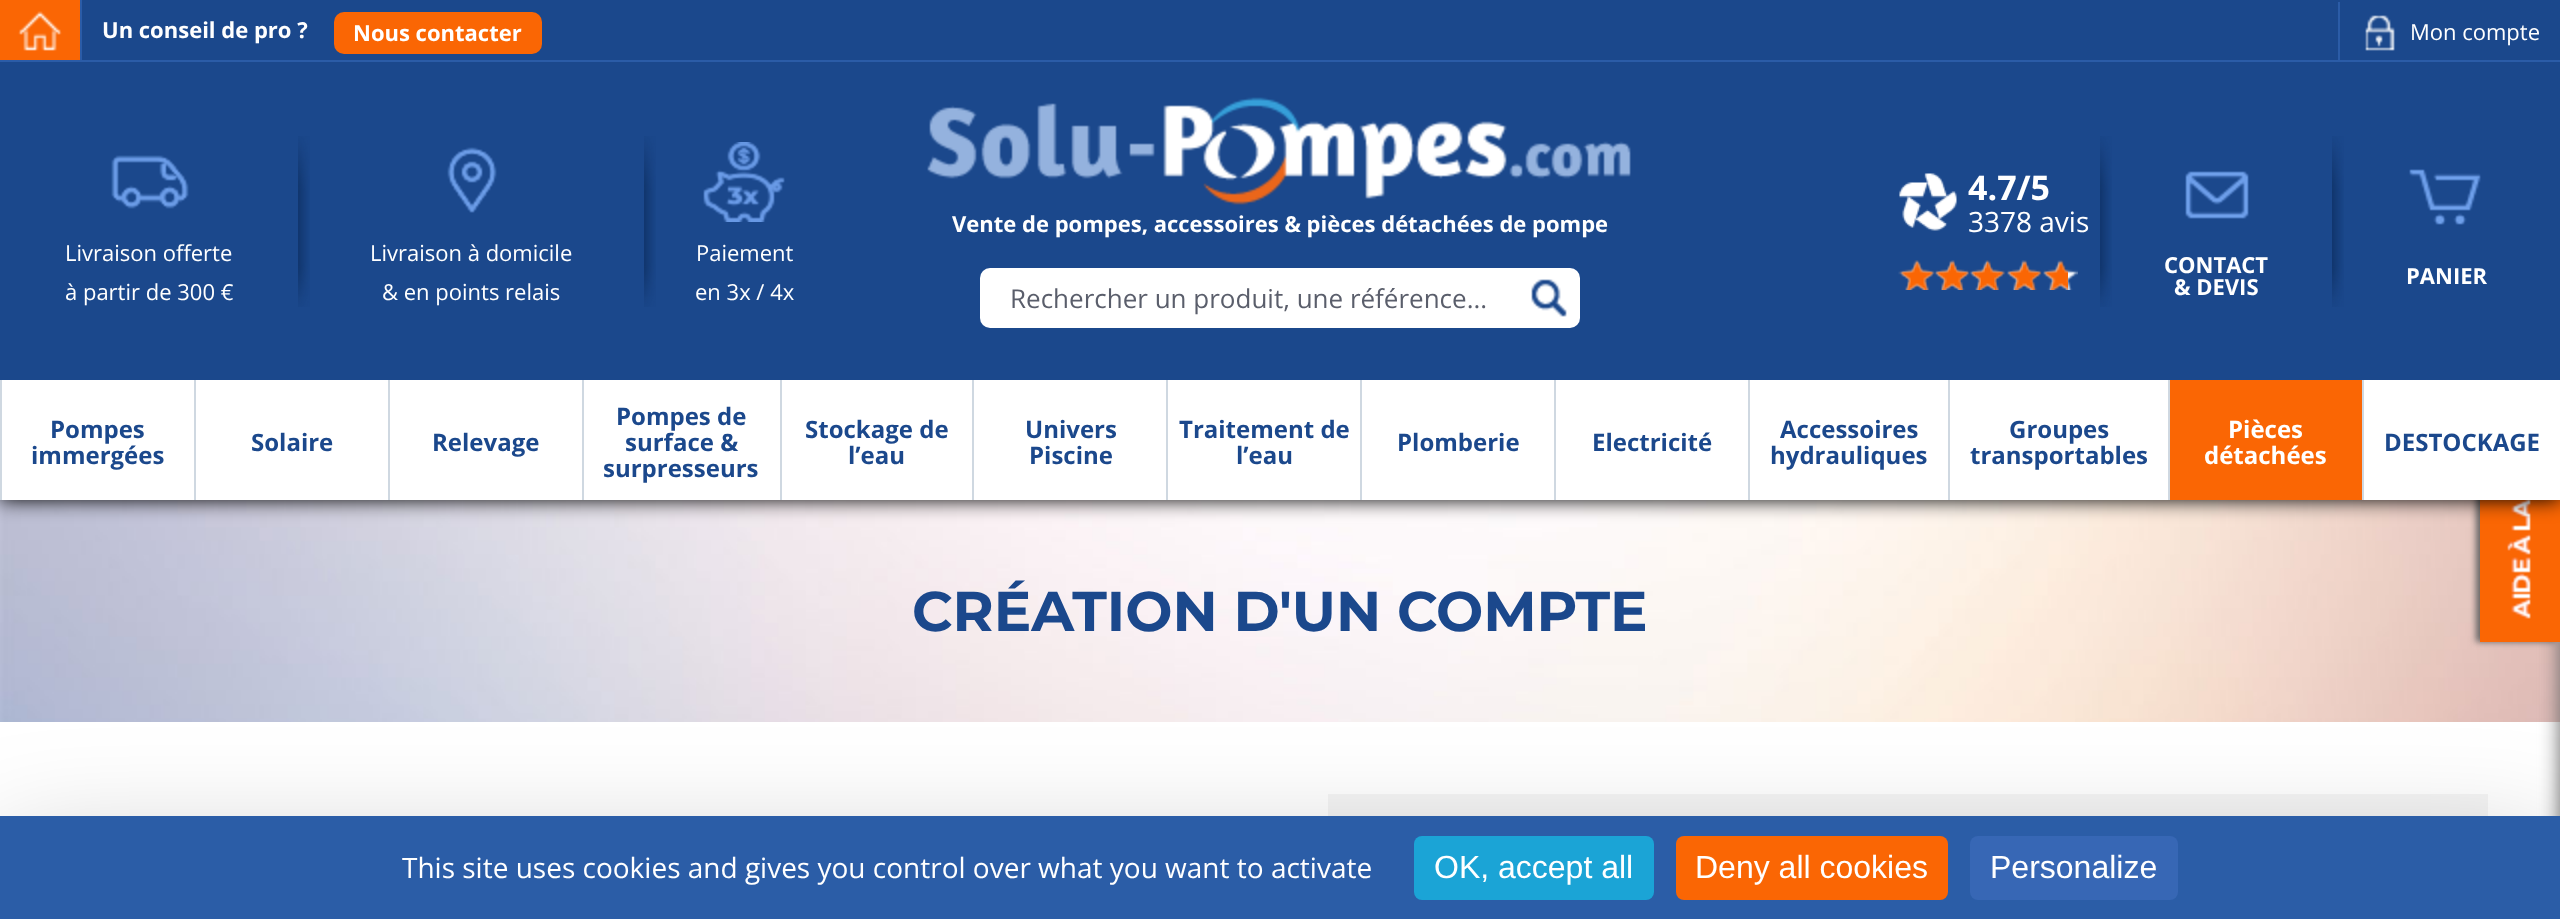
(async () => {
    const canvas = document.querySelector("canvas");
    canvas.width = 2560;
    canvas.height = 919;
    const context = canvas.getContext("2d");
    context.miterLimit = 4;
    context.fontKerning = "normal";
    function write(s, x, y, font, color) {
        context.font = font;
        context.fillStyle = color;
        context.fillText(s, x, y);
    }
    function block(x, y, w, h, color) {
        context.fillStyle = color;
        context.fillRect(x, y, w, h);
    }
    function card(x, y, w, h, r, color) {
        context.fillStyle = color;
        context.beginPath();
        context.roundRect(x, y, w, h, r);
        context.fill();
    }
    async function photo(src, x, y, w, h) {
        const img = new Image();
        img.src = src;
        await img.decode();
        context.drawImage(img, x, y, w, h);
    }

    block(0, 0, 2560, 919, "rgb(255, 255, 255)");
    await photo("media/14.png", 0, 500, 2560, 222);
    context.fillStyle = "rgb(102, 102, 102)";
    context.filter = "blur(10px)";
    context.beginPath();
    context.rect(2560, 302, 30, 578);
    context.fill();
    context.filter = "none";
    context.filter = "blur(3px)";
    context.beginPath();
    context.rect(2476, 302, 80, 340);
    context.fill();
    context.filter = "none";
    await photo("media/15.png", 2480, 500, 80, 142);
    context.fillStyle = "rgb(0, 0, 0)";
    context.filter = "blur(10px)";
    context.beginPath();
    context.rect(0, 0, 2560, 500);
    context.fill();
    context.filter = "none";
    block(0, 0, 2560, 380, "rgb(27, 72, 140)");
    block(0, 0, 80, 60, "rgb(250, 102, 4)");
    block(80, 0, 2, 60, "rgb(43, 92, 167)");
    await photo("media/1.png", 18, 11, 44, 40);
    write("Un conseil de pro ?", 102, 38, "bold 22px Open Sans", "rgb(255, 255, 255)");
    card(334, 12, 208, 42, 10, "rgb(250, 102, 4)");
    write("Nous contacter", 353, 41, "bold 22px Open Sans", "rgb(255, 255, 255)");
    block(0, 60, 2560, 2, "rgb(43, 92, 167)");
    await photo("media/2.png", 1899, 173, 58, 58);
    write("4.7/5", 1968, 200, "bold 34px Open Sans", "rgb(255, 255, 255)");
    write("3378 avis", 1968, 232, "28px Open Sans", "rgb(255, 255, 255)");
    await photo("media/3.png", 1898, 260, 180, 30);
    await photo("media/4.png", 1899, 260, 169, 30);
    block(2338, 2, 2, 60, "rgb(43, 92, 167)");
    await photo("media/5.png", 2365, 15, 30, 36);
    write("Mon compte", 2410, 40, "22px Open Sans", "rgb(255, 255, 255)");
    await photo("media/6.png", 2100, 136, 12, 171);
    await photo("media/7.png", 2185, 171, 64, 48);
    write("CONTACT", 2164, 273, "bold 22px Open Sans", "rgb(255, 255, 255)");
    write("& DEVIS", 2174, 295, "bold 22px Open Sans", "rgb(255, 255, 255)");
    await photo("media/6.png", 2332, 136, 12, 171);
    await photo("media/8.png", 2409, 169, 72, 56);
    write("PANIER", 2406, 284, "bold 22px Open Sans", "rgb(255, 255, 255)");
    await photo("media/9.png", 111, 155, 78, 54);
    write("Livraison offerte", 65, 261, "22px Open Sans", "rgb(255, 255, 255)");
    write("à partir de 300 €", 65, 300, "22px Open Sans", "rgb(255, 255, 255)");
    await photo("media/6.png", 298, 136, 12, 171);
    await photo("media/10.png", 447, 147, 50, 66);
    write("Livraison à domicile", 370, 261, "22px Open Sans", "rgb(255, 255, 255)");
    write("& en points relais", 382, 300, "22px Open Sans", "rgb(255, 255, 255)");
    await photo("media/6.png", 644, 136, 12, 171);
    await photo("media/11.png", 703, 142, 82, 80);
    write("Paiement", 696, 261, "22px Open Sans", "rgb(255, 255, 255)");
    write("en 3x / 4x", 695, 300, "22px Open Sans", "rgb(255, 255, 255)");
    await photo("media/12.png", 927, 97, 704, 108);
    write("Vente de pompes, accessoires & pièces détachées de pompe", 952, 232, "bold 22px Open Sans", "rgb(255, 255, 255)");
    card(980, 268, 600, 60, 10, "rgb(255, 255, 255)");
    write("Rechercher un produit, une référence...", 1010, 308, "26px Open Sans", "rgb(90, 94, 107)");
    await photo("media/13.png", 1531, 279, 36, 38);
    block(2, 380, 2558, 120, "rgb(255, 255, 255)");
    block(0, 380, 2, 120, "rgb(207, 216, 225)");
    write("Pompes", 50, 438, "bold 24px Open Sans", "rgb(27, 72, 140)");
    write("immergées", 31, 464, "bold 24px Open Sans", "rgb(27, 72, 140)");
    block(194, 380, 2, 120, "rgb(207, 216, 225)");
    write("Solaire", 251, 451, "bold 24px Open Sans", "rgb(27, 72, 140)");
    block(388, 380, 2, 120, "rgb(207, 216, 225)");
    write("Relevage", 432, 451, "bold 24px Open Sans", "rgb(27, 72, 140)");
    block(582, 380, 2, 120, "rgb(207, 216, 225)");
    write("Pompes de", 616, 425, "bold 24px Open Sans", "rgb(27, 72, 140)");
    write("surface &", 625, 451, "bold 24px Open Sans", "rgb(27, 72, 140)");
    write("surpresseurs", 603, 477, "bold 24px Open Sans", "rgb(27, 72, 140)");
    block(780, 380, 2, 120, "rgb(207, 216, 225)");
    write("Stockage de", 805, 438, "bold 24px Open Sans", "rgb(27, 72, 140)");
    write("l’eau", 848, 464, "bold 24px Open Sans", "rgb(27, 72, 140)");
    block(972, 380, 2, 120, "rgb(207, 216, 225)");
    write("Univers", 1025, 438, "bold 24px Open Sans", "rgb(27, 72, 140)");
    write("Piscine", 1029, 464, "bold 24px Open Sans", "rgb(27, 72, 140)");
    block(1166, 380, 2, 120, "rgb(207, 216, 225)");
    write("Traitement de", 1179, 438, "bold 24px Open Sans", "rgb(27, 72, 140)");
    write("l’eau", 1236, 464, "bold 24px Open Sans", "rgb(27, 72, 140)");
    block(1360, 380, 2, 120, "rgb(207, 216, 225)");
    write("Plomberie", 1397, 451, "bold 24px Open Sans", "rgb(27, 72, 140)");
    block(1554, 380, 2, 120, "rgb(207, 216, 225)");
    write("Electricité", 1592, 451, "bold 24px Open Sans", "rgb(27, 72, 140)");
    block(1748, 380, 2, 120, "rgb(207, 216, 225)");
    write("Accessoires", 1780, 438, "bold 24px Open Sans", "rgb(27, 72, 140)");
    write("hydrauliques", 1770, 464, "bold 24px Open Sans", "rgb(27, 72, 140)");
    block(1948, 380, 2, 120, "rgb(207, 216, 225)");
    write("Groupes", 2009, 438, "bold 24px Open Sans", "rgb(27, 72, 140)");
    write("transportables", 1970, 464, "bold 24px Open Sans", "rgb(27, 72, 140)");
    block(2170, 380, 192, 120, "rgb(250, 102, 4)");
    block(2168, 380, 2, 120, "rgb(207, 216, 225)");
    write("Pièces", 2228, 438, "bold 24px Open Sans", "rgb(255, 255, 255)");
    write("détachées", 2204, 464, "bold 24px Open Sans", "rgb(255, 255, 255)");
    block(2362, 380, 2, 120, "rgb(207, 216, 225)");
    write("DESTOCKAGE", 2384, 451, "bold 24px Open Sans", "rgb(27, 72, 140)");
    write("CRÉATION D'UN COMPTE", 912, 631, "bold 56px Montserrat", "rgb(27, 72, 140)");
    block(1328, 794, 1160, 22, "rgb(245, 245, 245)");
    context.fillStyle = "rgba(0, 0, 0, 0.25)";
    context.filter = "blur(60px)";
    context.beginPath();
    context.rect(0, 856, 2560, 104);
    context.fill();
    context.filter = "none";
    block(0, 816, 2560, 103, "rgb(43, 93, 167)");
    write("This site uses cookies and gives you control over what you want to activate", 402, 878, "28px Open Sans", "rgb(255, 255, 255)");
    card(1414, 836, 240, 64, 8, "rgb(27, 164, 214)");
    write("OK, accept all", 1434, 878, "32px Liberation Sans", "rgb(255, 255, 255)");
    card(1676, 836, 272, 64, 8, "rgb(250, 102, 4)");
    write("Deny all cookies", 1695, 878, "32px Liberation Sans", "rgb(255, 255, 255)");
    card(1970, 836, 208, 64, 8, "rgb(55, 103, 181)");
    write("Personalize", 1990, 878, "32px Liberation Sans", "rgb(255, 255, 255)");
})();
